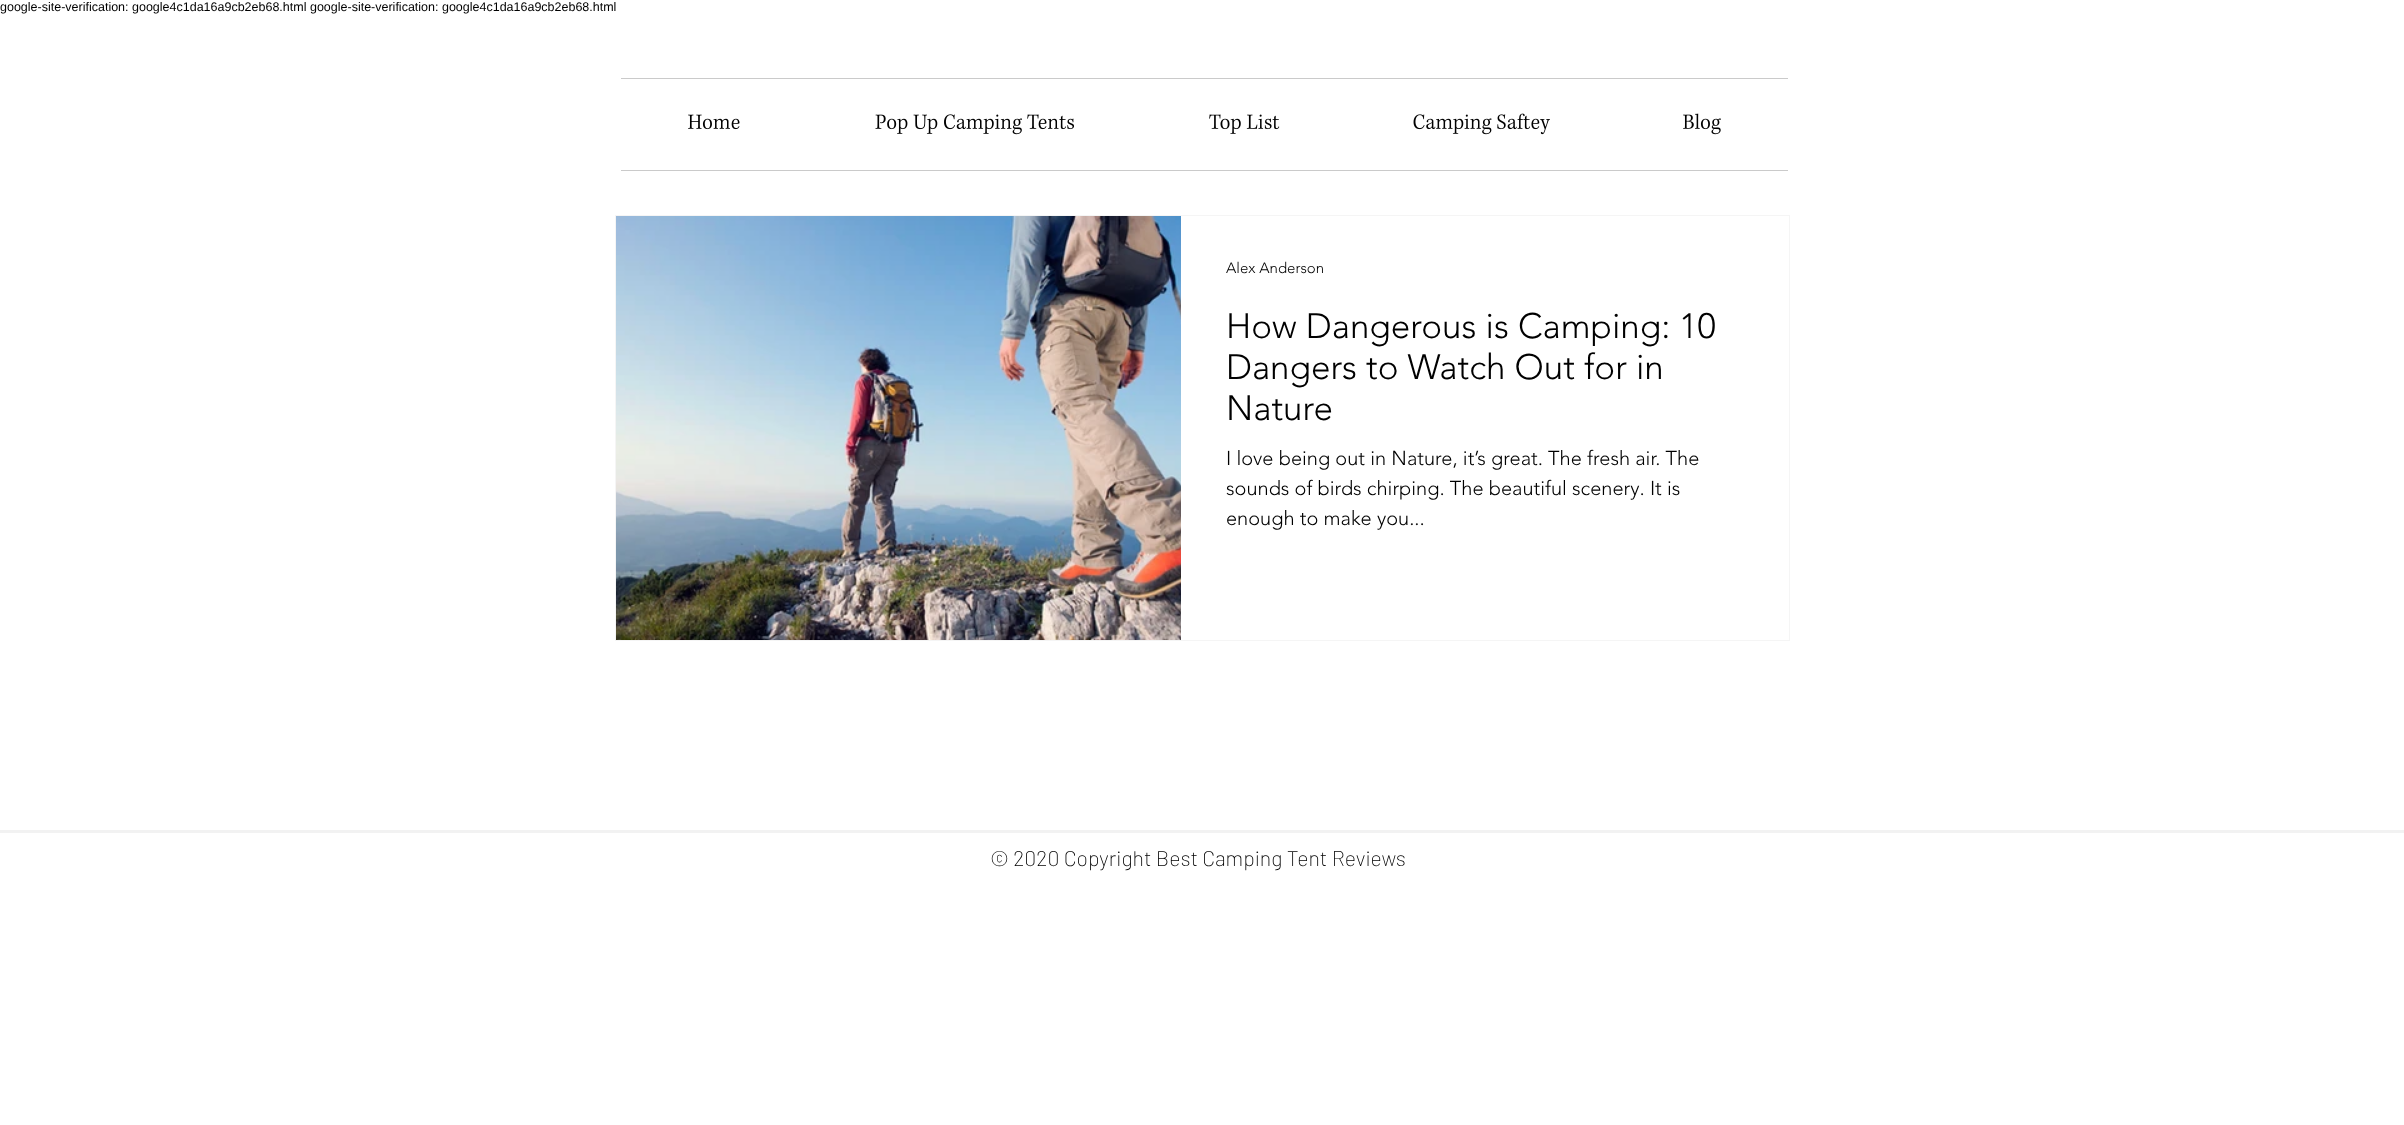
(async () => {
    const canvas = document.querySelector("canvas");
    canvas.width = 2404;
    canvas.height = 1125;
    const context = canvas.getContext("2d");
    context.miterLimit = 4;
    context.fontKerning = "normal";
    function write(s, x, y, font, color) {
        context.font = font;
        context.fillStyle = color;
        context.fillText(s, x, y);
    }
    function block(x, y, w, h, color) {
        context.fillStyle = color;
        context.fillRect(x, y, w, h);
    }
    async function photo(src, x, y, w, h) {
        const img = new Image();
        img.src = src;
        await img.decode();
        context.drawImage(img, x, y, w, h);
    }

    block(0, 0, 2404, 1125, "rgb(255, 255, 255)");
    write("google-site-verification: google4c1da16a9cb2eb68.html google-site-verification: google4c1da16a9cb2eb68.html", 0, 11, "12.5px Liberation Sans", "rgb(0, 0, 0)");
    block(621, 78, 1167, 1, "rgb(202, 202, 202)");
    block(621, 170, 1167, 1, "rgb(202, 202, 202)");
    await photo("media/1.png", 688, 114, 52, 16);
    await photo("media/2.png", 875, 114, 199, 21);
    await photo("media/3.png", 1209, 114, 71, 20);
    await photo("media/4.png", 1413, 113, 137, 22);
    await photo("media/5.png", 1683, 113, 38, 22);
    context.strokeStyle = "rgb(245, 245, 245)";
    context.strokeRect(615.5, 215.5, 1174, 425);
    await photo("media/6.png", 616, 216, 565, 424);
    write("Alex Anderson", 1226, 273, "300 15px 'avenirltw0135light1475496'", "rgb(0, 0, 0)");
    write("How Dangerous is Camping: 10", 1226, 338, "300 35px 'avenirltw0135light1475496'", "rgb(0, 0, 0)");
    write("Dangers to Watch Out for in", 1226, 379, "300 35px 'avenirltw0135light1475496'", "rgb(0, 0, 0)");
    write("Nature", 1226, 420, "300 35px 'avenirltw0135light1475496'", "rgb(0, 0, 0)");
    write("I love being out in Nature, it’s great. The fresh air. The", 1226, 465, "300 20px 'avenirltw0135light1475496'", "rgb(0, 0, 0)");
    write("sounds of birds chirping. The beautiful scenery. It is", 1226, 495, "300 20px 'avenirltw0135light1475496'", "rgb(0, 0, 0)");
    write("enough to make you...", 1226, 525, "300 20px 'avenirltw0135light1475496'", "rgb(0, 0, 0)");
    block(0, 830, 2404, 3, "rgb(242, 242, 242)");
    write("© 2020 Copyright Best Camping Tent Reviews", 990, 866, "200 21.25px Barlow", "rgb(0, 0, 0)");
})();
